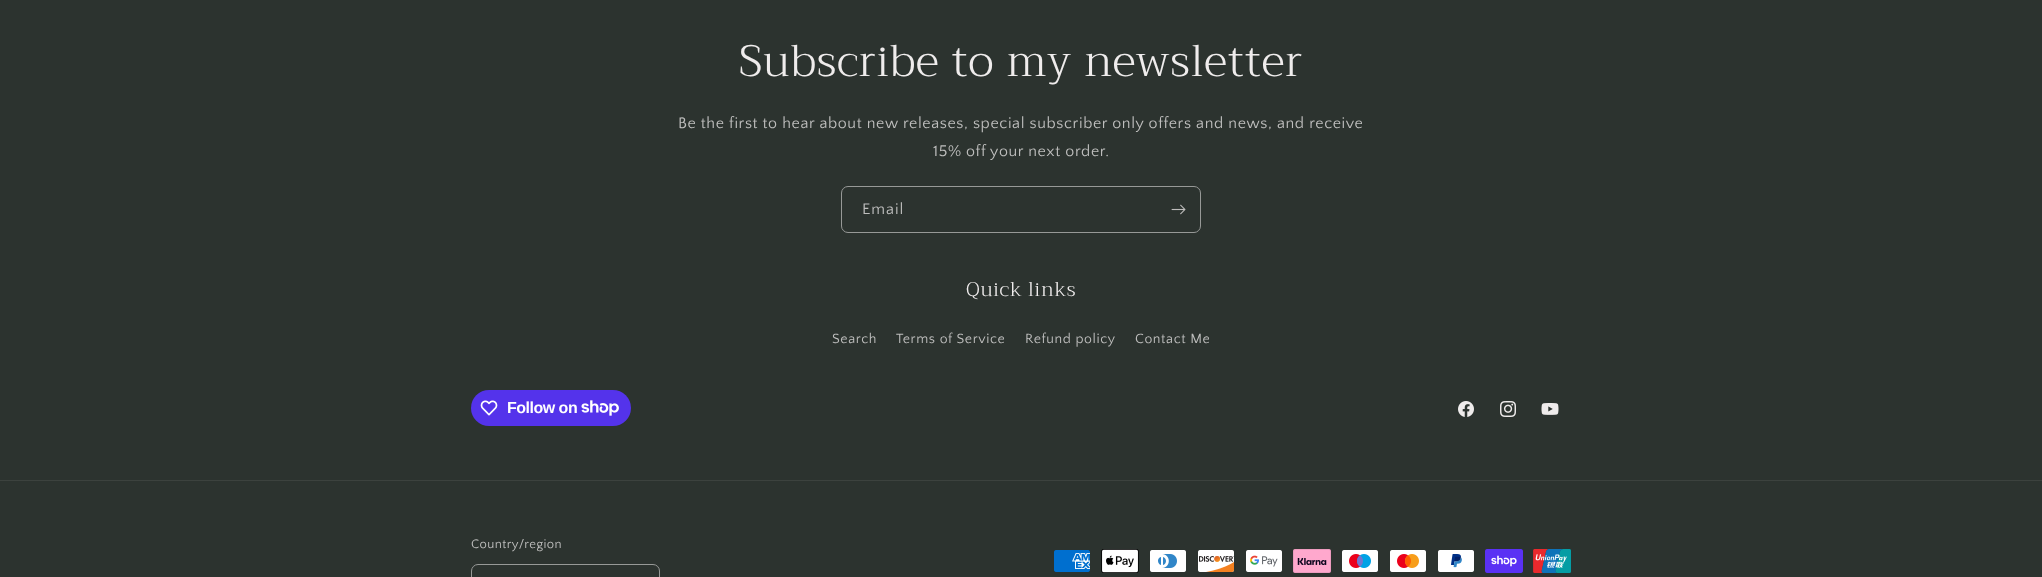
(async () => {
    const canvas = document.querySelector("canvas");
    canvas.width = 2042;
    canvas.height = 577;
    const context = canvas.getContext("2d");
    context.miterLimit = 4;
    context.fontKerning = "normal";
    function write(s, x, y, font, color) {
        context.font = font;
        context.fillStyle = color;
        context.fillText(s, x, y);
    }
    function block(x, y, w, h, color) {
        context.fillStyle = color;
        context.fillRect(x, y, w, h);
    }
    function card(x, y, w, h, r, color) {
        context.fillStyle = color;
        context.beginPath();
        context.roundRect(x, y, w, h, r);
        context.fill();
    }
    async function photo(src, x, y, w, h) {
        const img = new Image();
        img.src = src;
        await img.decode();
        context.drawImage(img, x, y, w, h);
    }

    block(0, 0, 2042, 577, "rgb(44, 51, 47)");
    context.letterSpacing = "0.65px";
    write("Subscribe to my newsletter", 739, 76, "300 44px Trirong", "rgb(239, 236, 236)");
    context.letterSpacing = "0.6px";
    write("Be the first to hear about new releases, special subscriber only offers and news, and receive", 678, 128, "16px Quattrocento Sans", "rgb(190, 190, 189)");
    write("15% off your next order.", 933, 156, "16px Quattrocento Sans", "rgb(190, 190, 189)");
    context.beginPath();
    context.roundRect(841.5, 186.5, 359, 46, 6.5);
    context.strokeStyle = "rgb(151, 153, 151)";
    context.stroke();
    context.letterSpacing = "1px";
    write("Email", 862, 214, "16px Quattrocento Sans", "rgb(190, 190, 189)");
    await photo("media/1.png", 1171, 204, 15, 11);
    context.letterSpacing = "0.65px";
    write("Quick links", 966, 296, "300 19.75px Trirong", "rgb(239, 236, 236)");
    context.letterSpacing = "0.6px";
    write("Search", 832, 343, "14px Quattrocento Sans", "rgb(190, 190, 189)");
    write("Terms of Service", 896, 343, "14px Quattrocento Sans", "rgb(190, 190, 189)");
    write("Refund policy", 1025, 343, "14px Quattrocento Sans", "rgb(190, 190, 189)");
    write("Contact Me", 1135, 343, "14px Quattrocento Sans", "rgb(190, 190, 189)");
    card(471, 390, 160, 36, 18, "rgb(84, 51, 235)");
    await photo("media/2.png", 480, 400, 18, 16);
    context.letterSpacing = "-0.5px";
    write("Follow on", 507, 413, "bold 16px Liberation Sans", "rgb(255, 255, 255)");
    await photo("media/3.png", 581, 400, 38, 16);
    await photo("media/4.png", 1458, 401, 16, 16);
    await photo("media/5.png", 1500, 401, 16, 16);
    await photo("media/6.png", 1541, 403, 18, 12);
    block(0, 480, 2042, 1, "rgb(60, 66, 62)");
    context.letterSpacing = "0.4px";
    write("Country/region", 471, 548, "13px Quattrocento Sans", "rgb(190, 190, 189)");
    context.beginPath();
    context.roundRect(471.5, 564.5, 188, 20, 6.5);
    context.stroke();
    await photo("media/7.png", 1054, 550, 36, 22);
    await photo("media/8.png", 1101, 549, 38, 24);
    await photo("media/9.png", 1150, 550, 36, 22);
    await photo("media/10.png", 1198, 550, 36, 22);
    await photo("media/11.png", 1246, 550, 36, 22);
    await photo("media/12.png", 1293, 549, 38, 24);
    await photo("media/13.png", 1342, 550, 36, 22);
    await photo("media/14.png", 1390, 550, 36, 22);
    await photo("media/15.png", 1438, 550, 36, 22);
    await photo("media/16.png", 1485, 549, 38, 24);
    await photo("media/17.png", 1533, 549, 38, 24);
})();
